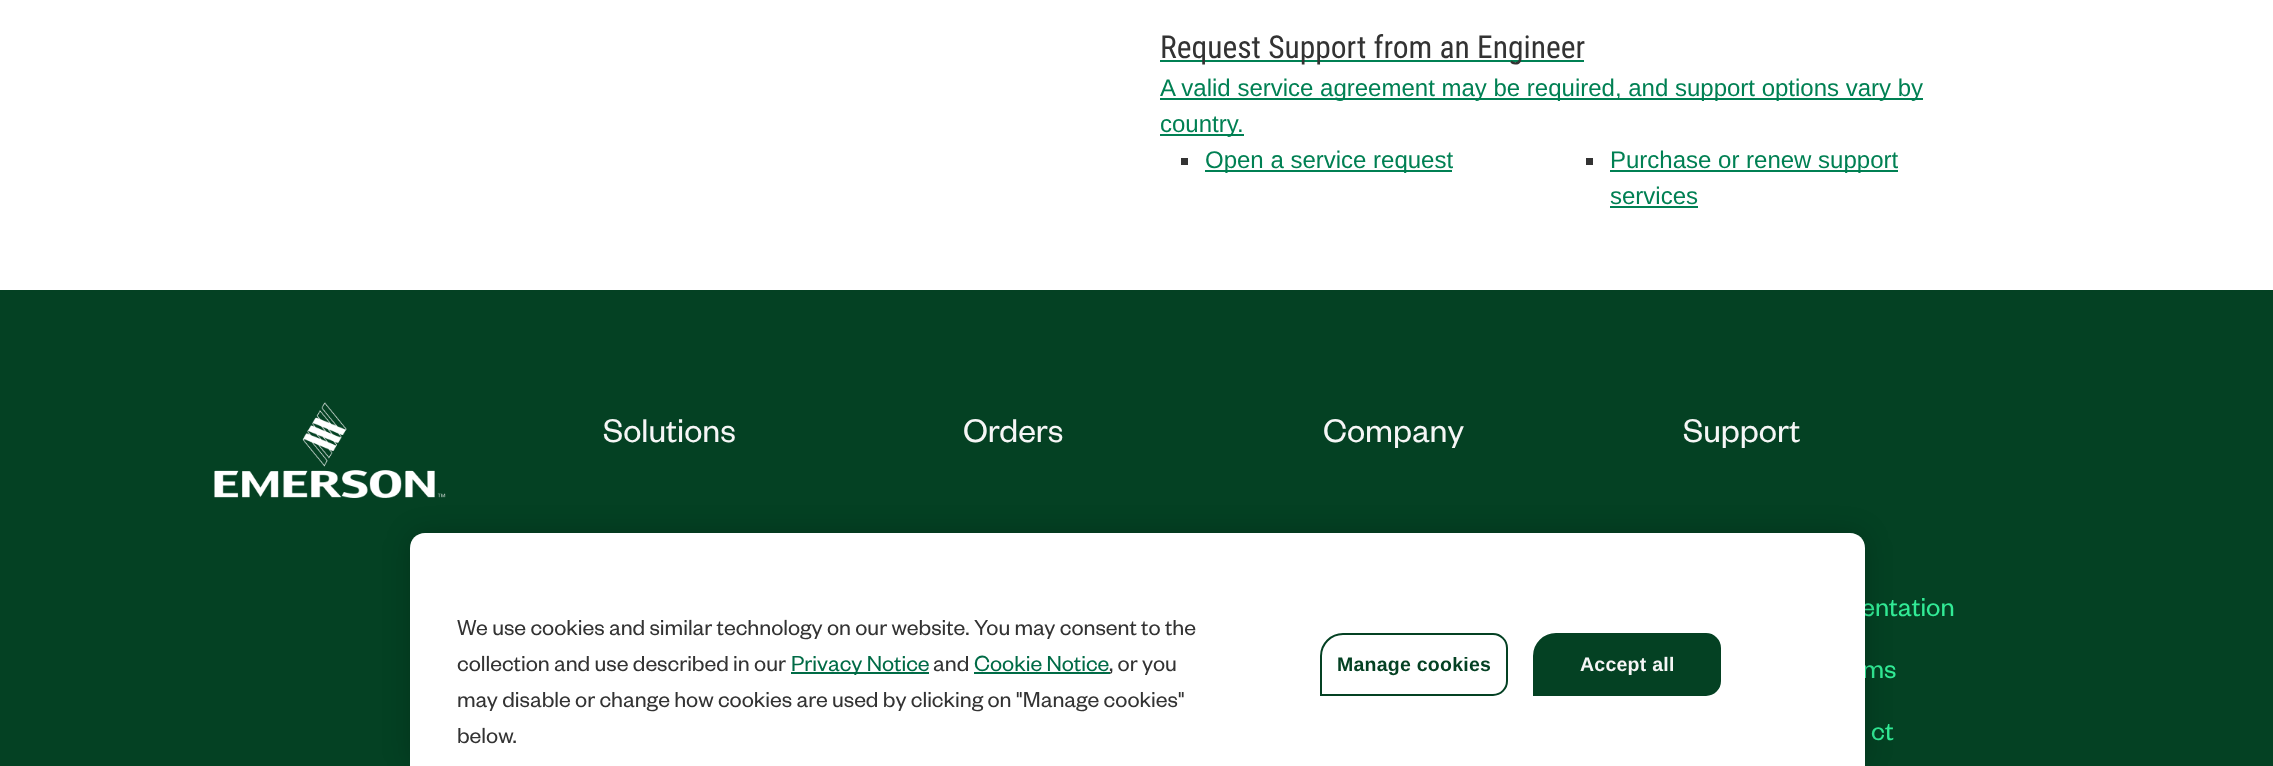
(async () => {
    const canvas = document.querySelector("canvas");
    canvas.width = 2273;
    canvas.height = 766;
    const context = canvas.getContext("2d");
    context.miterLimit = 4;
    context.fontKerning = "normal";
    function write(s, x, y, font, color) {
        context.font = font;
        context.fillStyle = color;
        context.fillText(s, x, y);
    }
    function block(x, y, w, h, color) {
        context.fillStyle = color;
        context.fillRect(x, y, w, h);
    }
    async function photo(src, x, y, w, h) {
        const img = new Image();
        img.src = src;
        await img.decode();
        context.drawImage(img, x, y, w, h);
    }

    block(0, 0, 2273, 766, "rgb(255, 255, 255)");
    block(1160, 60, 424, 2, "rgb(0, 128, 83)");
    write("Request Support from an Engineer", 1160, 58, "31.5px Roboto Condensed", "rgb(51, 51, 51)");
    block(1160, 98, 763, 2, "rgb(0, 128, 83)");
    write("A valid service agreement may be required, and support options vary by", 1160, 96, "24px Liberation Sans", "rgb(0, 128, 83)");
    block(1160, 134, 84, 2, "rgb(0, 128, 83)");
    write("country.", 1160, 132, "24px Liberation Sans", "rgb(0, 128, 83)");
    block(1181, 158, 7, 7, "rgb(51, 51, 51)");
    block(1205, 170, 247, 2, "rgb(0, 128, 83)");
    write("Open a service request", 1205, 168, "24px Liberation Sans", "rgb(0, 128, 83)");
    block(1586, 158, 7, 7, "rgb(51, 51, 51)");
    block(1610, 170, 288, 2, "rgb(0, 128, 83)");
    write("Purchase or renew support", 1610, 168, "24px Liberation Sans", "rgb(0, 128, 83)");
    write("services", 1610, 204, "24px Liberation Sans", "rgb(0, 128, 83)");
    block(1610, 206, 88, 2, "rgb(0, 128, 83)");
    block(0, 290, 2273, 476, "rgb(4, 65, 35)");
    await photo("media/1.png", 214, 402, 232, 96);
    write("Solutions", 603, 442, "36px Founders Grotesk", "rgb(246, 246, 246)");
    write("Orders", 963, 442, "36px Founders Grotesk", "rgb(246, 246, 246)");
    write("Company", 1323, 442, "36px Founders Grotesk", "rgb(246, 246, 246)");
    write("Support", 1683, 442, "36px Founders Grotesk", "rgb(246, 246, 246)");
    write("entation", 1861, 616, "28.5px Founders Grotesk", "rgb(50, 235, 150)");
    write("ms", 1862, 678, "28.5px Founders Grotesk", "rgb(50, 235, 150)");
    write("ct", 1871, 740, "28.5px Founders Grotesk", "rgb(50, 235, 150)");
    context.fillStyle = "rgba(0, 0, 0, 0.2)";
    context.filter = "blur(13.5px)";
    context.beginPath();
    context.roundRect(410, 533, 1455, 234, 15);
    context.fill();
    context.filter = "none";
    context.fillStyle = "rgb(255, 255, 255)";
    context.beginPath();
    context.moveTo(425, 533);
    context.lineTo(1850, 533);
    context.bezierCurveTo(1858.5, 533, 1865, 539.5, 1865, 548);
    context.lineTo(1865, 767);
    context.lineTo(410, 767);
    context.lineTo(410, 548);
    context.bezierCurveTo(410, 539.5, 416.5, 533, 425, 533);
    context.closePath();
    context.fill();
    write("We use cookies and similar technology on our website. You may consent to the", 457, 635, "24px Founders Grotesk", "rgb(51, 51, 51)");
    write("collection and use described in our", 457, 671, "24px Founders Grotesk", "rgb(51, 51, 51)");
    block(791, 672, 138, 2, "rgb(0, 107, 70)");
    write("Privacy Notice", 791, 671, "24px Founders Grotesk", "rgb(0, 107, 70)");
    write("and", 933, 671, "24px Founders Grotesk", "rgb(51, 51, 51)");
    write("Cookie Notice", 974, 671, "24px Founders Grotesk", "rgb(0, 107, 70)");
    block(974, 672, 136, 2, "rgb(0, 107, 70)");
    write(", or you", 1109, 671, "24px Founders Grotesk", "rgb(51, 51, 51)");
    write("may disable or change how cookies are used by clicking on \"Manage cookies\"", 457, 707, "24px Founders Grotesk", "rgb(51, 51, 51)");
    write("below.", 457, 743, "24px Founders Grotesk", "rgb(51, 51, 51)");
    context.beginPath();
    context.roundRect(1321, 634, 186, 61, [22, 14, 14, 0]);
    context.strokeStyle = "rgb(4, 65, 35)";
    context.lineWidth = 2;
    context.stroke();
    context.letterSpacing = "0.25px";
    write("Manage cookies", 1337, 671, "bold 19.5px Liberation Sans", "rgb(4, 65, 35)");
    context.beginPath();
    context.roundRect(1534, 634, 186, 61, [22, 14, 14, 0]);
    context.fill();
    context.stroke();
    write("Accept all", 1580, 671, "bold 19.5px Liberation Sans", "rgb(246, 246, 246)");
})();
